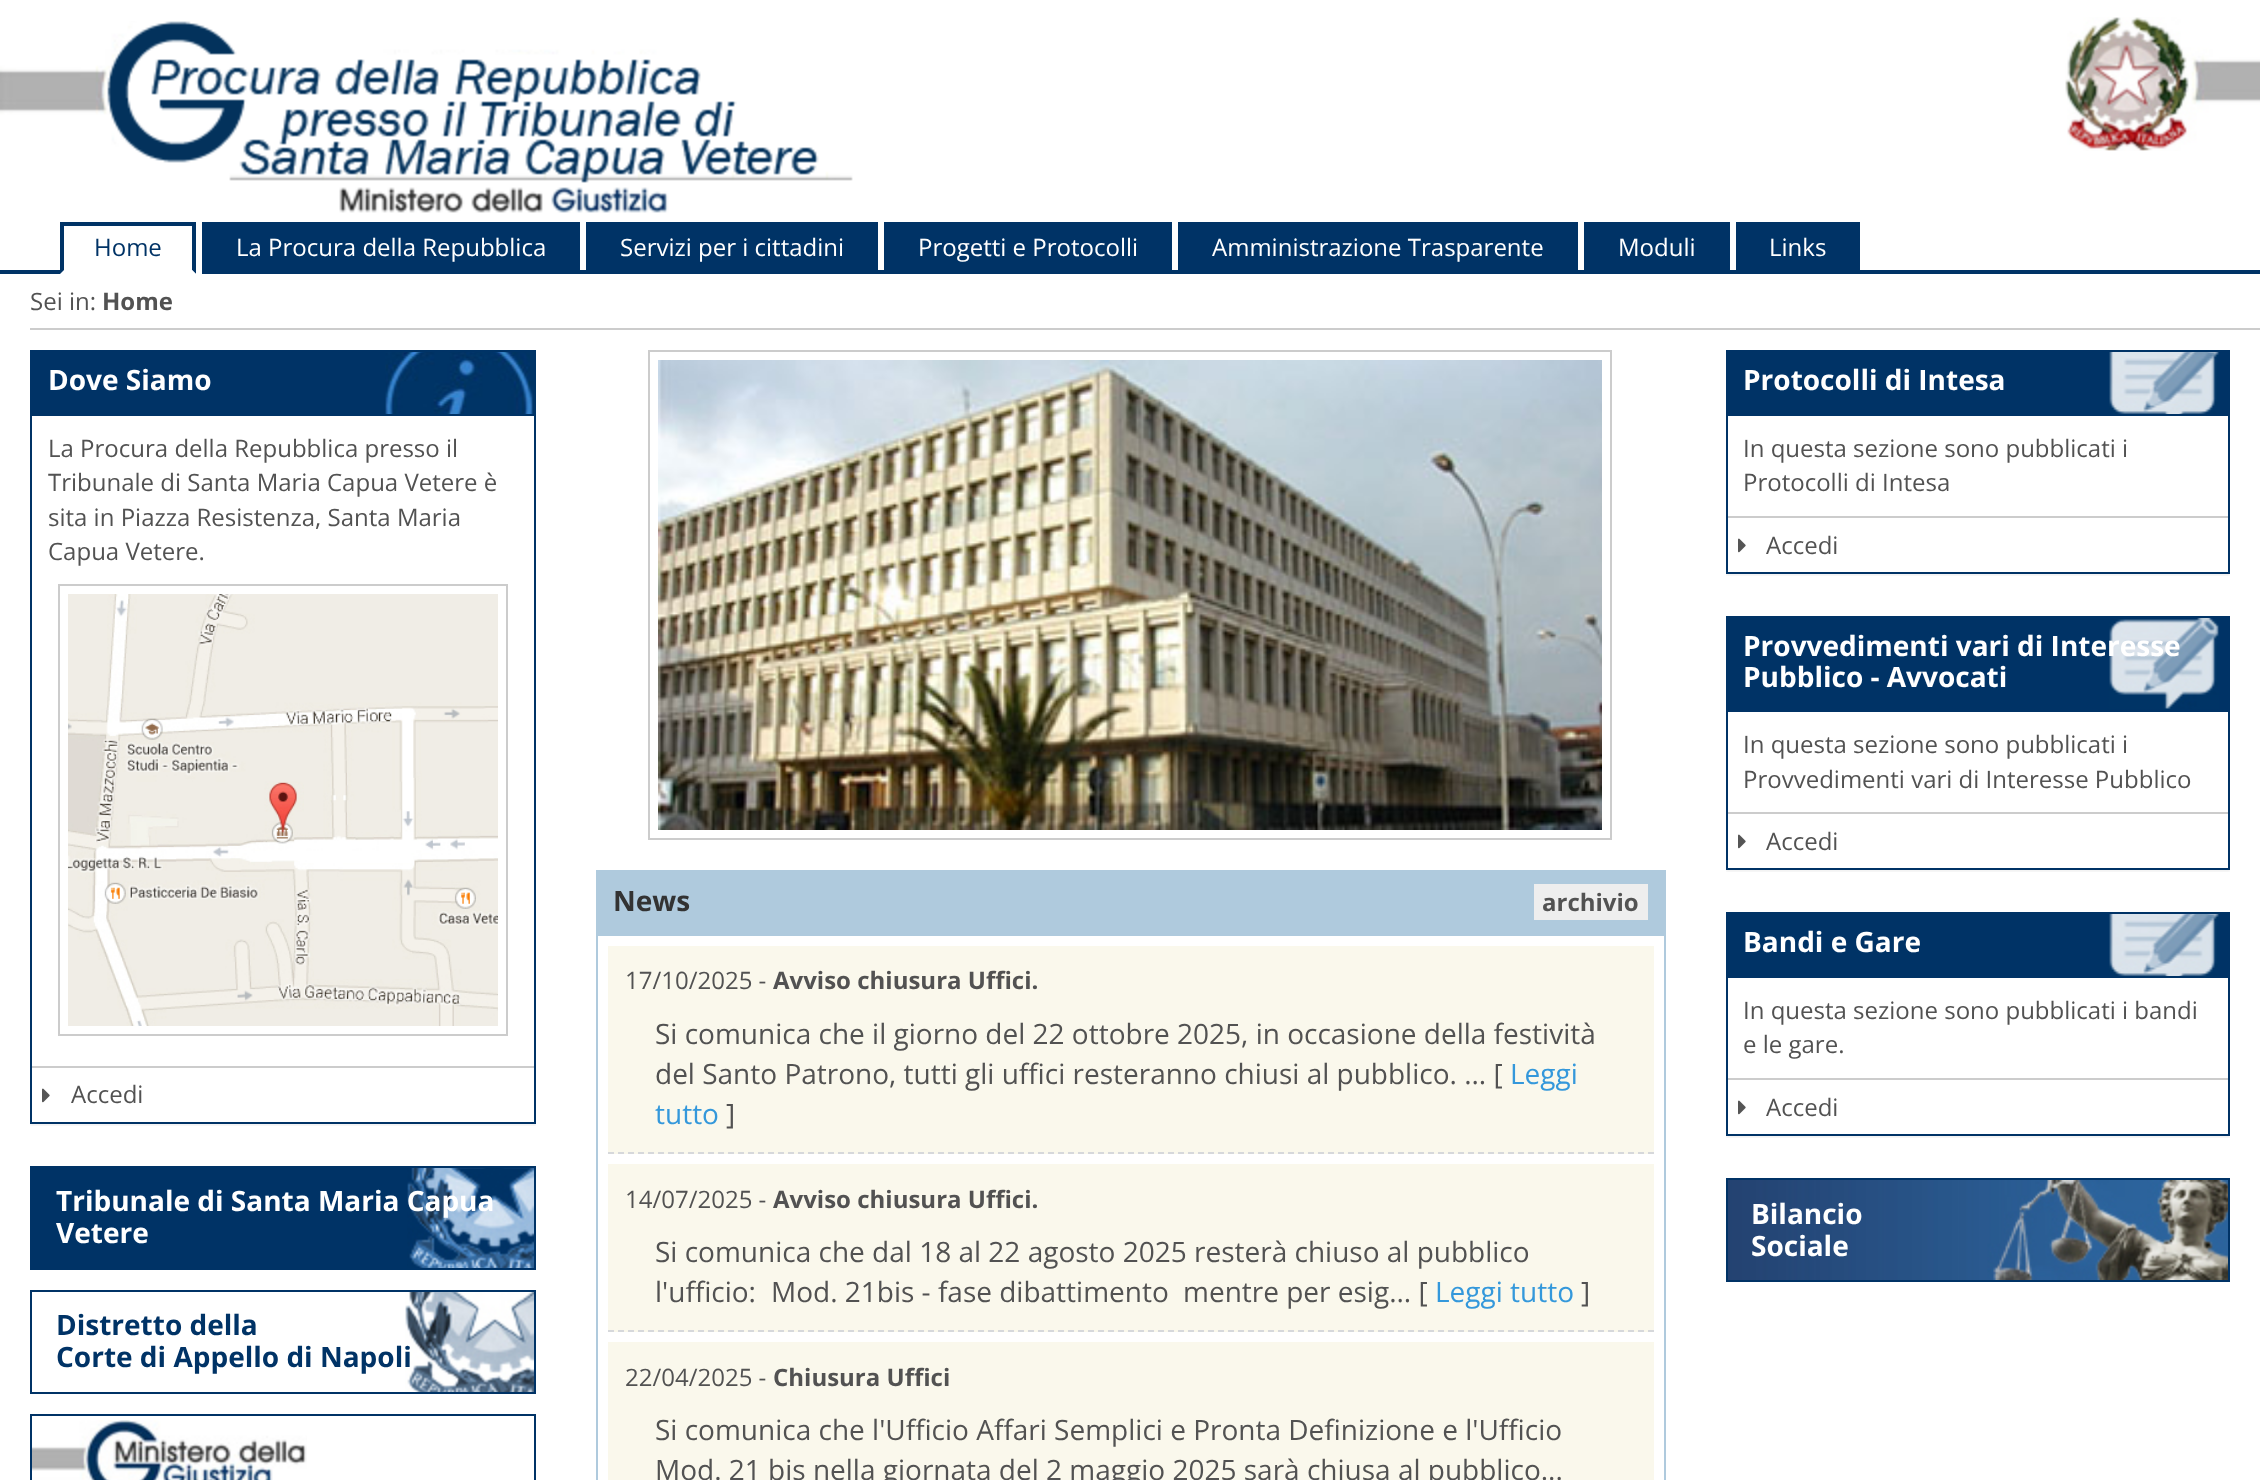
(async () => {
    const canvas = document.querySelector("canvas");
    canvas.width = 2260;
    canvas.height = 1480;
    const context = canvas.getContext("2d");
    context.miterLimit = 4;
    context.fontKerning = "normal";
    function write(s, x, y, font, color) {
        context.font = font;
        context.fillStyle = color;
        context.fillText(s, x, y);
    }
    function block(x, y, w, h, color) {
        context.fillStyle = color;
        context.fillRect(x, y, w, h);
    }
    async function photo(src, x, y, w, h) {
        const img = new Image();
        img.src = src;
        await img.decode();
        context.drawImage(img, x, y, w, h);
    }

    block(0, 0, 2260, 1480, "rgb(255, 255, 255)");
    await photo("media/1.png", 0, 21, 853, 192);
    await photo("media/2.png", 2065, 17, 195, 134);
    block(0, 270, 2260, 4, "rgb(0, 51, 102)");
    block(60, 270, 142, 4, "rgb(255, 255, 255)");
    block(60, 222, 136, 4, "rgb(0, 51, 102)");
    context.beginPath();
    context.moveTo(196, 222);
    context.lineTo(196, 274);
    context.lineTo(192, 270);
    context.lineTo(192, 226);
    context.closePath();
    context.fill();
    context.fillStyle = "rgb(255, 255, 255)";
    context.beginPath();
    context.moveTo(196, 274);
    context.lineTo(60, 274);
    context.lineTo(64, 270);
    context.lineTo(192, 270);
    context.closePath();
    context.fill();
    context.fillStyle = "rgb(0, 51, 102)";
    context.beginPath();
    context.moveTo(60, 274);
    context.lineTo(60, 222);
    context.lineTo(64, 226);
    context.lineTo(64, 270);
    context.closePath();
    context.fill();
    write("Home", 94, 256, "24px Open Sans", "rgb(0, 51, 102)");
    block(202, 222, 378, 48, "rgb(0, 51, 102)");
    write("La Procura della Repubblica", 236, 256, "24px Open Sans", "rgb(255, 255, 255)");
    block(586, 222, 292, 48, "rgb(0, 51, 102)");
    write("Servizi per i cittadini", 620, 256, "24px Open Sans", "rgb(255, 255, 255)");
    block(884, 222, 288, 48, "rgb(0, 51, 102)");
    write("Progetti e Protocolli", 918, 256, "24px Open Sans", "rgb(255, 255, 255)");
    block(1178, 222, 400, 48, "rgb(0, 51, 102)");
    write("Amministrazione Trasparente", 1212, 256, "24px Open Sans", "rgb(255, 255, 255)");
    block(1584, 222, 146, 48, "rgb(0, 51, 102)");
    write("Moduli", 1618, 256, "24px Open Sans", "rgb(255, 255, 255)");
    block(1736, 222, 124, 48, "rgb(0, 51, 102)");
    write("Links", 1769, 256, "24px Open Sans", "rgb(255, 255, 255)");
    block(30, 328, 2230, 2, "rgb(204, 204, 204)");
    write("Sei in:", 30, 310, "24px Open Sans", "rgb(82, 82, 82)");
    write("Home", 102, 310, "bold 24px Open Sans", "rgb(82, 82, 82)");
    context.save();
    context.beginPath();
    context.rect(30, 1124, 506, 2);
    context.clip();
    context.fillStyle = "rgba(0, 0, 0, 0.05)";
    context.filter = "blur(1px)";
    context.beginPath();
    context.rect(30, 352, 506, 774);
    context.fill();
    context.filter = "none";
    context.restore();
    context.strokeStyle = "rgb(0, 51, 102)";
    context.lineWidth = 2;
    context.strokeRect(31, 351, 504, 772);
    block(32, 352, 353, 62, "rgb(0, 51, 102)");
    await photo("media/3.png", 385, 352, 149, 62);
    block(32, 414, 502, 2, "rgb(0, 51, 102)");
    write("Dove Siamo", 48, 390, "bold 28px Open Sans", "rgb(255, 255, 255)");
    write("La Procura della Repubblica presso il", 48, 457, "24px Open Sans", "rgb(82, 82, 82)");
    write("Tribunale di Santa Maria Capua Vetere è", 48, 491, "24px Open Sans", "rgb(82, 82, 82)");
    write("sita in Piazza Resistenza, Santa Maria", 48, 526, "24px Open Sans", "rgb(82, 82, 82)");
    write("Capua Vetere.", 48, 560, "24px Open Sans", "rgb(82, 82, 82)");
    context.strokeStyle = "rgb(204, 204, 204)";
    context.strokeRect(59, 585, 448, 450);
    await photo("media/4.png", 68, 594, 430, 432);
    block(32, 1066, 502, 2, "rgb(204, 204, 204)");
    await photo("media/5.png", 42, 1088, 8, 15);
    write("Accedi", 71, 1103, "24px Open Sans", "rgb(82, 82, 82)");
    block(32, 1168, 375, 100, "rgb(0, 51, 102)");
    await photo("media/6.png", 407, 1168, 127, 100);
    context.strokeStyle = "rgb(0, 51, 102)";
    context.strokeRect(31, 1167, 504, 102);
    write("Tribunale di Santa Maria Capua", 56, 1211, "bold 28px Open Sans", "rgb(255, 255, 255)");
    write("Vetere", 56, 1243, "bold 28px Open Sans", "rgb(255, 255, 255)");
    await photo("media/7.png", 405, 1292, 129, 100);
    context.strokeRect(31, 1291, 504, 102);
    write("Distretto della", 56, 1335, "bold 28px Open Sans", "rgb(0, 51, 102)");
    write("Corte di Appello di Napoli", 56, 1367, "bold 28px Open Sans", "rgb(0, 51, 102)");
    await photo("media/8.png", 32, 1420, 275, 60);
    context.strokeRect(31, 1415, 504, 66);
    context.strokeStyle = "rgb(204, 204, 204)";
    context.strokeRect(649, 351, 962, 488);
    await photo("media/9.png", 658, 360, 944, 470);
    context.strokeStyle = "rgb(175, 202, 221)";
    context.strokeRect(597, 871, 1068, 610);
    block(598, 872, 1066, 64, "rgb(175, 202, 221)");
    write("News", 613, 911, "bold 28px Open Sans", "rgb(51, 51, 51)");
    block(1534, 884, 114, 36, "rgb(238, 238, 238)");
    write("archivio", 1542, 911, "bold 24px Open Sans", "rgb(82, 82, 82)");
    block(608, 946, 1046, 208, "rgb(250, 248, 236)");
    context.beginPath();
    context.moveTo(608, 1153);
    context.lineTo(1654, 1153);
    context.strokeStyle = "rgb(214, 216, 219)";
    context.setLineDash([6, 4]);
    context.stroke();
    write("17/10/2025 -", 625, 989, "24px Open Sans", "rgb(82, 82, 82)");
    write("Avviso chiusura Uffici.", 773, 989, "bold 24px Open Sans", "rgb(82, 82, 82)");
    write("Si comunica che il giorno del 22 ottobre 2025, in occasione della festività", 655, 1044, "28px Open Sans", "rgb(82, 82, 82)");
    write("del Santo Patrono, tutti gli uffici resteranno chiusi al pubblico. ... [", 655, 1084, "28px Open Sans", "rgb(82, 82, 82)");
    write("Leggi", 1510, 1084, "28px Open Sans", "rgb(52, 152, 219)");
    write("tutto", 655, 1124, "28px Open Sans", "rgb(52, 152, 219)");
    write("]", 726, 1124, "28px Open Sans", "rgb(82, 82, 82)");
    block(608, 1164, 1046, 168, "rgb(250, 248, 236)");
    context.beginPath();
    context.moveTo(608, 1331);
    context.lineTo(1654, 1331);
    context.stroke();
    write("14/07/2025 -", 625, 1208, "24px Open Sans", "rgb(82, 82, 82)");
    write("Avviso chiusura Uffici.", 773, 1208, "bold 24px Open Sans", "rgb(82, 82, 82)");
    write("Si comunica che dal 18 al 22 agosto 2025 resterà chiuso al pubblico", 655, 1262, "28px Open Sans", "rgb(82, 82, 82)");
    write("l'ufficio:", 655, 1302, "28px Open Sans", "rgb(82, 82, 82)");
    write("Mod. 21bis - fase dibattimento", 771, 1302, "28px Open Sans", "rgb(82, 82, 82)");
    write("mentre per esig... [", 1183, 1302, "28px Open Sans", "rgb(82, 82, 82)");
    write("Leggi tutto", 1435, 1302, "28px Open Sans", "rgb(52, 152, 219)");
    write("]", 1581, 1302, "28px Open Sans", "rgb(82, 82, 82)");
    block(608, 1342, 1046, 138, "rgb(250, 248, 236)");
    write("22/04/2025 -", 625, 1386, "24px Open Sans", "rgb(82, 82, 82)");
    write("Chiusura Uffici", 773, 1386, "bold 24px Open Sans", "rgb(82, 82, 82)");
    write("Si comunica che l'Ufficio Affari Semplici e Pronta Definizione e l'Ufficio", 655, 1440, "28px Open Sans", "rgb(82, 82, 82)");
    write("Mod. 21 bis nella giornata del 2 maggio 2025 sarà chiusa al pubblico...", 655, 1480, "28px Open Sans", "rgb(82, 82, 82)");
    context.save();
    context.beginPath();
    context.rect(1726, 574, 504, 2);
    context.clip();
    context.fillStyle = "rgba(0, 0, 0, 0.05)";
    context.filter = "blur(1px)";
    context.beginPath();
    context.rect(1726, 352, 504, 224);
    context.fill();
    context.filter = "none";
    context.restore();
    context.strokeStyle = "rgb(0, 51, 102)";
    context.setLineDash([]);
    context.strokeRect(1727, 351, 502, 222);
    block(1728, 352, 500, 64, "rgb(0, 51, 102)");
    await photo("media/10.png", 2109, 352, 110, 62);
    write("Protocolli di Intesa", 1743, 390, "bold 28px Open Sans", "rgb(255, 255, 255)");
    write("In questa sezione sono pubblicati i", 1743, 457, "24px Open Sans", "rgb(82, 82, 82)");
    write("Protocolli di Intesa", 1743, 491, "24px Open Sans", "rgb(82, 82, 82)");
    block(1728, 516, 500, 2, "rgb(204, 204, 204)");
    await photo("media/5.png", 1738, 538, 8, 15);
    write("Accedi", 1766, 554, "24px Open Sans", "rgb(82, 82, 82)");
    context.save();
    context.beginPath();
    context.rect(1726, 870, 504, 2);
    context.clip();
    context.fillStyle = "rgba(0, 0, 0, 0.05)";
    context.filter = "blur(1px)";
    context.beginPath();
    context.rect(1726, 618, 504, 254);
    context.fill();
    context.filter = "none";
    context.restore();
    context.strokeRect(1727, 617, 502, 252);
    block(1728, 618, 500, 94, "rgb(0, 51, 102)");
    await photo("media/11.png", 2109, 618, 110, 91);
    write("Provvedimenti vari di Interesse", 1743, 656, "bold 28px Open Sans", "rgb(255, 255, 255)");
    write("Pubblico - Avvocati", 1743, 687, "bold 28px Open Sans", "rgb(255, 255, 255)");
    write("In questa sezione sono pubblicati i", 1743, 753, "24px Open Sans", "rgb(82, 82, 82)");
    write("Provvedimenti vari di Interesse Pubblico", 1743, 788, "24px Open Sans", "rgb(82, 82, 82)");
    block(1728, 812, 500, 2, "rgb(204, 204, 204)");
    await photo("media/5.png", 1738, 834, 8, 15);
    write("Accedi", 1766, 850, "24px Open Sans", "rgb(82, 82, 82)");
    context.save();
    context.beginPath();
    context.rect(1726, 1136, 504, 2);
    context.clip();
    context.fillStyle = "rgba(0, 0, 0, 0.05)";
    context.filter = "blur(1px)";
    context.beginPath();
    context.rect(1726, 914, 504, 224);
    context.fill();
    context.filter = "none";
    context.restore();
    context.strokeRect(1727, 913, 502, 222);
    block(1728, 914, 500, 64, "rgb(0, 51, 102)");
    await photo("media/10.png", 2109, 914, 110, 62);
    write("Bandi e Gare", 1743, 952, "bold 28px Open Sans", "rgb(255, 255, 255)");
    write("In questa sezione sono pubblicati i bandi", 1743, 1019, "24px Open Sans", "rgb(82, 82, 82)");
    write("e le gare.", 1743, 1053, "24px Open Sans", "rgb(82, 82, 82)");
    block(1728, 1078, 500, 2, "rgb(204, 204, 204)");
    await photo("media/5.png", 1738, 1100, 8, 15);
    write("Accedi", 1766, 1116, "24px Open Sans", "rgb(82, 82, 82)");
    await photo("media/12.png", 1728, 1180, 500, 100);
    context.strokeRect(1727, 1179, 502, 102);
    write("Bilancio", 1751, 1224, "bold 28px Open Sans", "rgb(255, 255, 255)");
    write("Sociale", 1751, 1256, "bold 28px Open Sans", "rgb(255, 255, 255)");
})();
